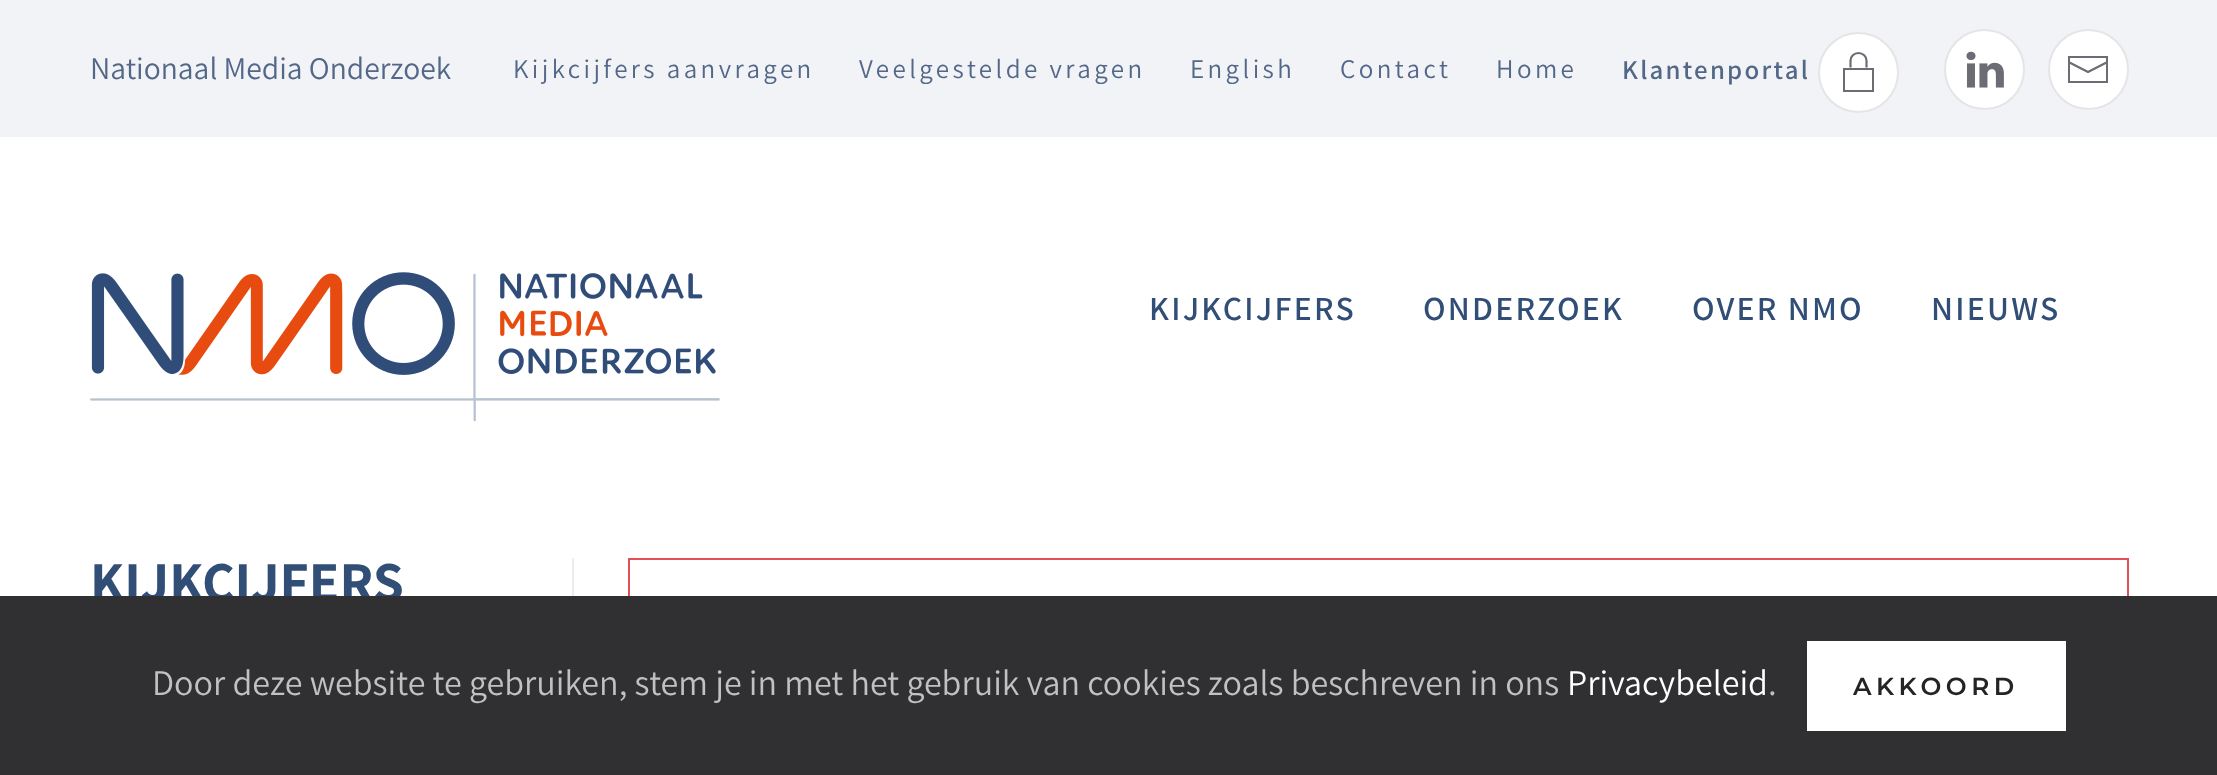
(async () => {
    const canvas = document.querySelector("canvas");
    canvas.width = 2217;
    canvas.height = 775;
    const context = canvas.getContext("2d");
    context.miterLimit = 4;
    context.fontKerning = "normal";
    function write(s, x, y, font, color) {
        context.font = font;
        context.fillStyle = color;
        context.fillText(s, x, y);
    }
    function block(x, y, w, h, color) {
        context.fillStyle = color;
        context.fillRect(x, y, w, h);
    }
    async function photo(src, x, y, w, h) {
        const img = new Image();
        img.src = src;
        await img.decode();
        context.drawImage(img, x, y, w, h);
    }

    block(0, 0, 2217, 775, "rgb(255, 255, 255)");
    block(0, 0, 2217, 137, "rgb(242, 243, 247)");
    write("Nationaal Media Onderzoek", 90, 79, "31.5px Assistant", "rgb(83, 103, 136)");
    context.letterSpacing = "3.4px";
    write("Kijkcijfers aanvragen", 513, 78, "27px Assistant", "rgb(83, 103, 136)");
    write("Veelgestelde vragen", 859, 78, "27px Assistant", "rgb(83, 103, 136)");
    write("English", 1190, 78, "27px Assistant", "rgb(83, 103, 136)");
    write("Contact", 1340, 78, "27px Assistant", "rgb(83, 103, 136)");
    write("Home", 1496, 78, "27px Assistant", "rgb(83, 103, 136)");
    context.letterSpacing = "2.25px";
    write("Klantenportal", 1622, 79, "600 27px Assistant", "rgb(83, 103, 136)");
    context.fillStyle = "rgb(255, 255, 255)";
    context.beginPath();
    context.arc(1858.5, 72.5, 39.5, 0, Math.PI * 2);
    context.fill();
    context.strokeStyle = "rgb(229, 229, 231)";
    context.lineWidth = 2;
    context.stroke();
    context.strokeStyle = "rgb(108, 109, 116)";
    context.strokeRect(1844, 69, 29, 22);
    context.beginPath();
    context.moveTo(1850.5, 67.5);
    context.lineTo(1850.5, 60.5);
    context.bezierCurveTo(1850.5, 56.5, 1854, 53, 1858.5, 53);
    context.bezierCurveTo(1863, 53, 1866.5, 56.5, 1866.5, 60.5);
    context.lineTo(1866.5, 67.5);
    context.lineWidth = 2.2;
    context.stroke();
    context.beginPath();
    context.arc(1984.5, 69.5, 39.5, 0, Math.PI * 2);
    context.fill();
    context.strokeStyle = "rgb(229, 229, 231)";
    context.lineWidth = 2;
    context.stroke();
    await photo("media/1.png", 1966, 51, 38, 37);
    context.beginPath();
    context.arc(2088.5, 69.5, 39.5, 0, Math.PI * 2);
    context.fill();
    context.stroke();
    context.beginPath();
    context.moveTo(2068.5, 62);
    context.lineTo(2088, 72);
    context.lineTo(2107.5, 62);
    context.strokeStyle = "rgb(108, 109, 116)";
    context.lineWidth = 2.2;
    context.stroke();
    context.fillStyle = "rgb(108, 109, 116)";
    context.beginPath();
    context.moveTo(2068, 56);
    context.lineTo(2068, 83);
    context.lineTo(2108, 83);
    context.lineTo(2108, 56);
    context.closePath();
    context.moveTo(2106, 81);
    context.lineTo(2070, 81);
    context.lineTo(2070, 58);
    context.lineTo(2106, 58);
    context.closePath();
    context.fill();
    await photo("media/2.png", 90, 272, 630, 150);
    write("KIJKCIJFERS", 1149, 320, "600 33.75px Assistant", "rgb(49, 78, 118)");
    write("ONDERZOEK", 1423, 320, "600 33.75px Assistant", "rgb(49, 78, 118)");
    write("OVER NMO", 1692, 320, "600 33.75px Assistant", "rgb(49, 78, 118)");
    write("NIEUWS", 1931, 320, "600 33.75px Assistant", "rgb(49, 78, 118)");
    context.letterSpacing = "0px";
    write("KIJKCIJFERS", 90, 601, "bold 56.25px Assistant", "rgb(49, 78, 118)");
    block(572, 558, 2, 38, "rgb(237, 237, 237)");
    context.strokeStyle = "rgb(228, 78, 86)";
    context.lineWidth = 2;
    context.strokeRect(629, 559, 1499, 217);
    block(0, 596, 2217, 179, "rgb(48, 48, 51)");
    write("Door deze website te gebruiken, stem je in met het gebruik van cookies zoals beschreven in ons", 152, 695, "36px Assistant", "rgb(193, 193, 194)");
    write("Privacybeleid", 1567, 695, "36px Assistant", "rgb(255, 255, 255)");
    write(".", 1768, 695, "36px Assistant", "rgb(193, 193, 194)");
    block(1807, 641, 259, 90, "rgb(255, 255, 255)");
    context.letterSpacing = "4.5px";
    write("AKKOORD", 1853, 695, "600 24.75px Montserrat", "rgb(36, 36, 39)");
})();
